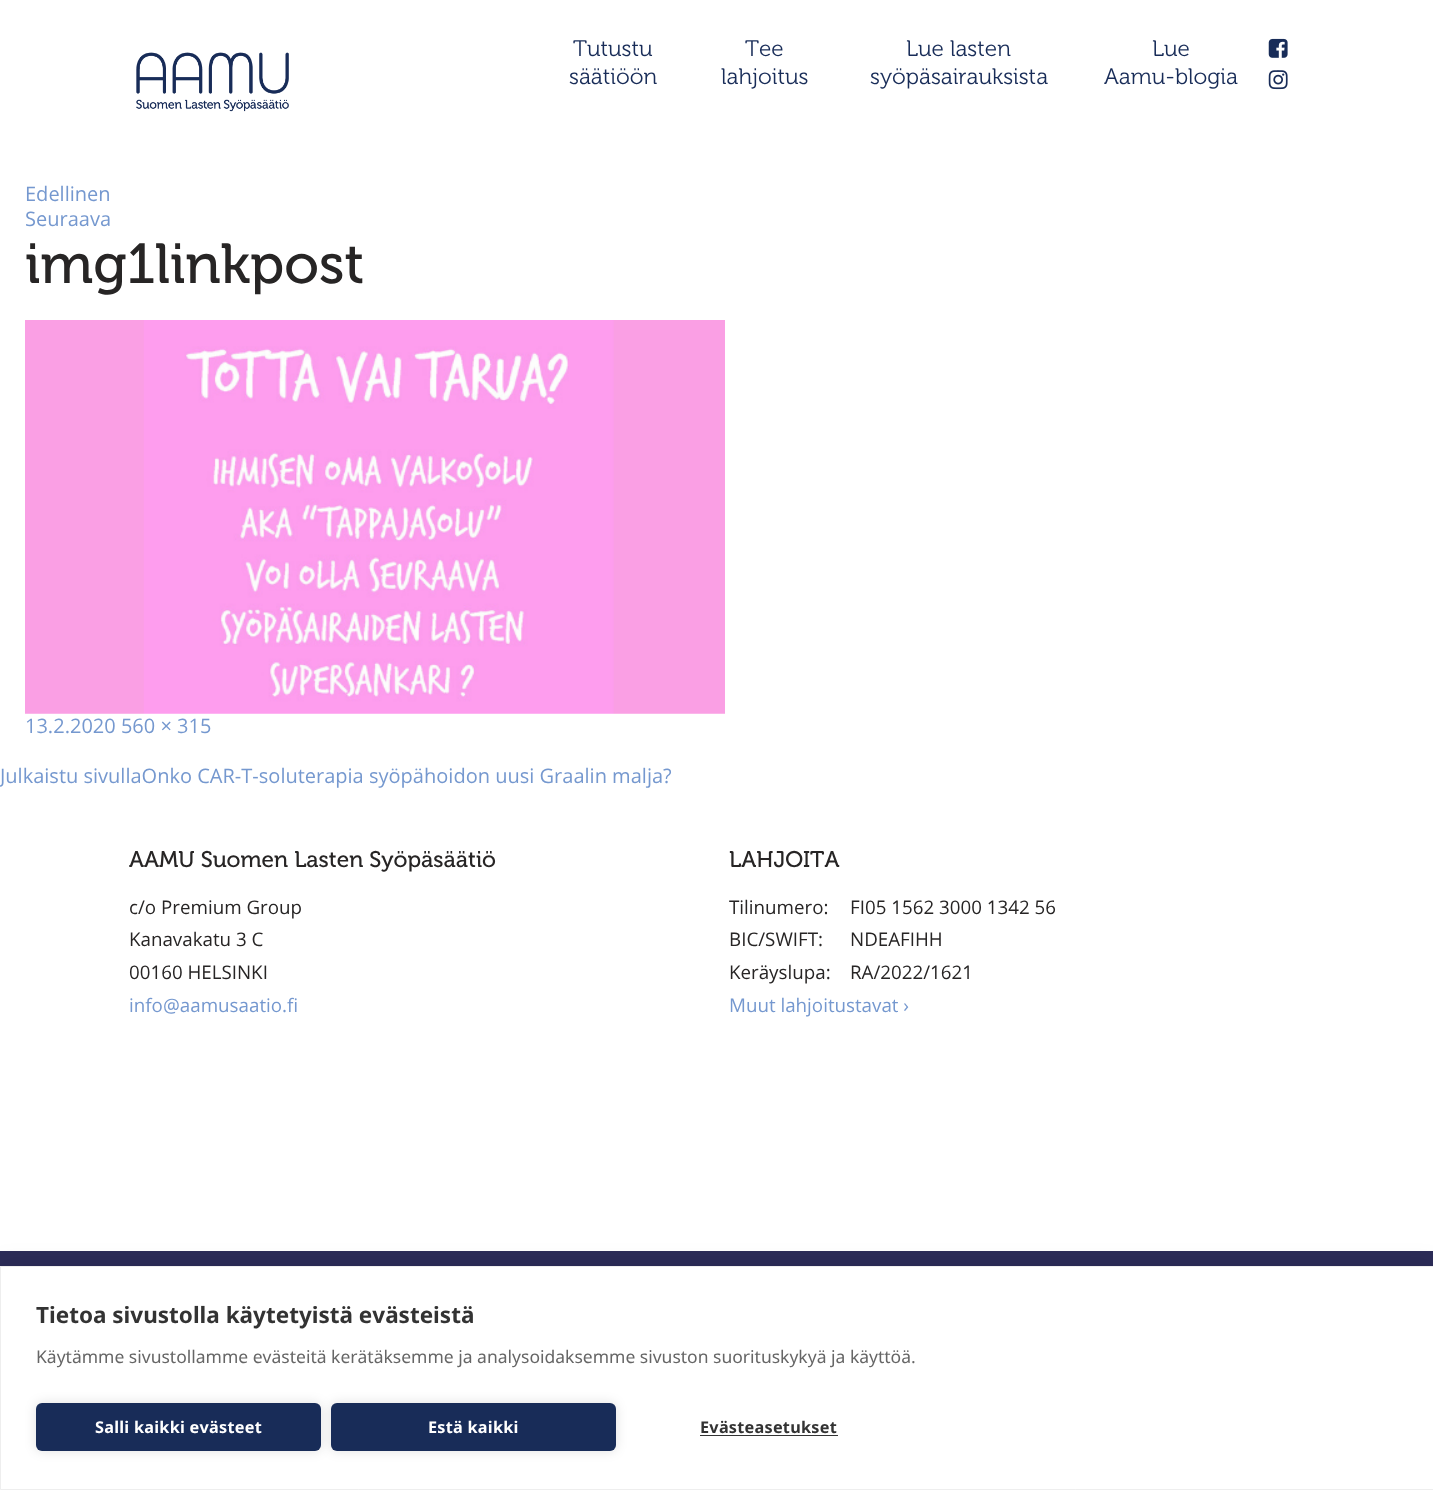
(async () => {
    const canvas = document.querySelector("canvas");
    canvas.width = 1433;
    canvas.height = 1490;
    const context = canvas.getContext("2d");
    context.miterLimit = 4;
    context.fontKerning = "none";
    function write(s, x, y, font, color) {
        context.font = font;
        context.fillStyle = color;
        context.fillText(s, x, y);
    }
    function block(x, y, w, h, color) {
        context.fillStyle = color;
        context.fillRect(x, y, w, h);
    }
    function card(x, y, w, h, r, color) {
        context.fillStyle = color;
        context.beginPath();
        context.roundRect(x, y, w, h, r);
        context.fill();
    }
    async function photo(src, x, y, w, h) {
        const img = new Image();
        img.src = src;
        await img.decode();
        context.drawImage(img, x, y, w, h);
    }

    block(0, 0, 1433, 1490, "rgb(255, 255, 255)");
    await photo("media/1.png", 136, 52, 153, 60);
    write("Tutustu", 573, 56, "300 22.5px 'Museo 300'", "rgb(24, 44, 88)");
    write("säätiöön", 569, 84, "300 22.5px 'Museo 300'", "rgb(24, 44, 88)");
    write("Tee", 745, 56, "300 22.5px 'Museo 300'", "rgb(24, 44, 88)");
    write("lahjoitus", 721, 84, "300 22.5px 'Museo 300'", "rgb(24, 44, 88)");
    write("Lue lasten", 906, 56, "300 22.5px 'Museo 300'", "rgb(24, 44, 88)");
    write("syöpäsairauksista", 870, 84, "300 22.5px 'Museo 300'", "rgb(24, 44, 88)");
    write("Lue", 1152, 56, "300 22.5px 'Museo 300'", "rgb(24, 44, 88)");
    write("Aamu-blogia", 1104, 84, "300 22.5px 'Museo 300'", "rgb(24, 44, 88)");
    await photo("media/2.png", 1268, 38, 20, 20);
    await photo("media/3.png", 1268, 70, 20, 20);
    write("Edellinen", 25, 201, "20px Open Sans", "rgb(117, 152, 207)");
    write("Seuraava", 25, 226, "20px Open Sans", "rgb(117, 152, 207)");
    write("img1linkpost", 25, 283, "56.25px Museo", "rgb(39, 37, 37)");
    await photo("media/4.png", 25, 320, 700, 394);
    write("13.2.2020 560 × 315", 25, 733, "20px Open Sans", "rgb(117, 152, 207)");
    write("Julkaistu sivullaOnko CAR-T-soluterapia syöpähoidon uusi Graalin malja?", 0, 783, "20px Open Sans", "rgb(117, 152, 207)");
    write("AAMU Suomen Lasten Syöpäsäätiö", 129, 867, "22.5px Museo", "rgb(39, 37, 37)");
    write("c/o Premium Group", 129, 914, "18.75px Open Sans", "rgb(39, 37, 37)");
    write("Kanavakatu 3 C", 129, 946, "18.75px Open Sans", "rgb(39, 37, 37)");
    write("00160 HELSINKI", 129, 979, "18.75px Open Sans", "rgb(39, 37, 37)");
    write("info@aamusaatio.fi", 129, 1012, "18.75px Open Sans", "rgb(117, 152, 207)");
    write("LAHJOITA", 729, 867, "22.5px Museo", "rgb(39, 37, 37)");
    write("Tilinumero:", 729, 914, "18.75px Open Sans", "rgb(39, 37, 37)");
    write("FI05 1562 3000 1342 56", 850, 914, "18.75px Open Sans", "rgb(39, 37, 37)");
    write("BIC/SWIFT:", 729, 946, "18.75px Open Sans", "rgb(39, 37, 37)");
    write("NDEAFIHH", 850, 946, "18.75px Open Sans", "rgb(39, 37, 37)");
    write("Keräyslupa:", 729, 979, "18.75px Open Sans", "rgb(39, 37, 37)");
    write("RA/2022/1621", 850, 979, "18.75px Open Sans", "rgb(39, 37, 37)");
    write("Muut lahjoitustavat ›", 729, 1012, "18.75px Open Sans", "rgb(117, 152, 207)");
    block(0, 1251, 1433, 15, "rgb(44, 44, 88)");
    context.fillStyle = "rgba(0, 0, 0, 0.1)";
    context.filter = "blur(12.5px)";
    context.beginPath();
    context.rect(0, 1266, 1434, 224);
    context.fill();
    context.filter = "none";
    context.fillStyle = "rgb(255, 255, 255)";
    context.beginPath();
    context.rect(0.5, 1266.5, 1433, 223);
    context.fill();
    context.strokeStyle = "rgb(238, 238, 238)";
    context.stroke();
    write("Tietoa sivustolla käytetyistä evästeistä", 36, 1323, "bold 22.5px Noto Sans", "rgb(51, 51, 51)");
    write("Käytämme sivustollamme evästeitä kerätäksemme ja analysoidaksemme sivuston suorituskykyä ja käyttöä.", 36, 1363, "17.5px Noto Sans", "rgb(102, 102, 102)");
    context.fillStyle = "rgba(0, 0, 0, 0.12)";
    context.filter = "blur(6px)";
    context.beginPath();
    context.roundRect(36, 1403, 285, 48, 6);
    context.fill();
    context.filter = "none";
    card(36, 1403, 285, 48, 6, "rgb(24, 44, 88)");
    context.letterSpacing = "0.25px";
    write("Salli kaikki evästeet", 95, 1433, "bold 16.25px Noto Sans", "rgb(255, 255, 255)");
    context.fillStyle = "rgba(0, 0, 0, 0.12)";
    context.filter = "blur(6px)";
    context.beginPath();
    context.roundRect(331, 1403, 285, 48, 6);
    context.fill();
    context.filter = "none";
    card(331, 1403, 285, 48, 6, "rgb(24, 44, 88)");
    write("Estä kaikki", 428, 1433, "bold 16.25px Noto Sans", "rgb(255, 255, 255)");
    write("Evästeasetukset", 700, 1433, "bold 16.25px Noto Sans", "rgb(51, 51, 51)");
    block(700, 1435, 138, 1, "rgb(51, 51, 51)");
})();
